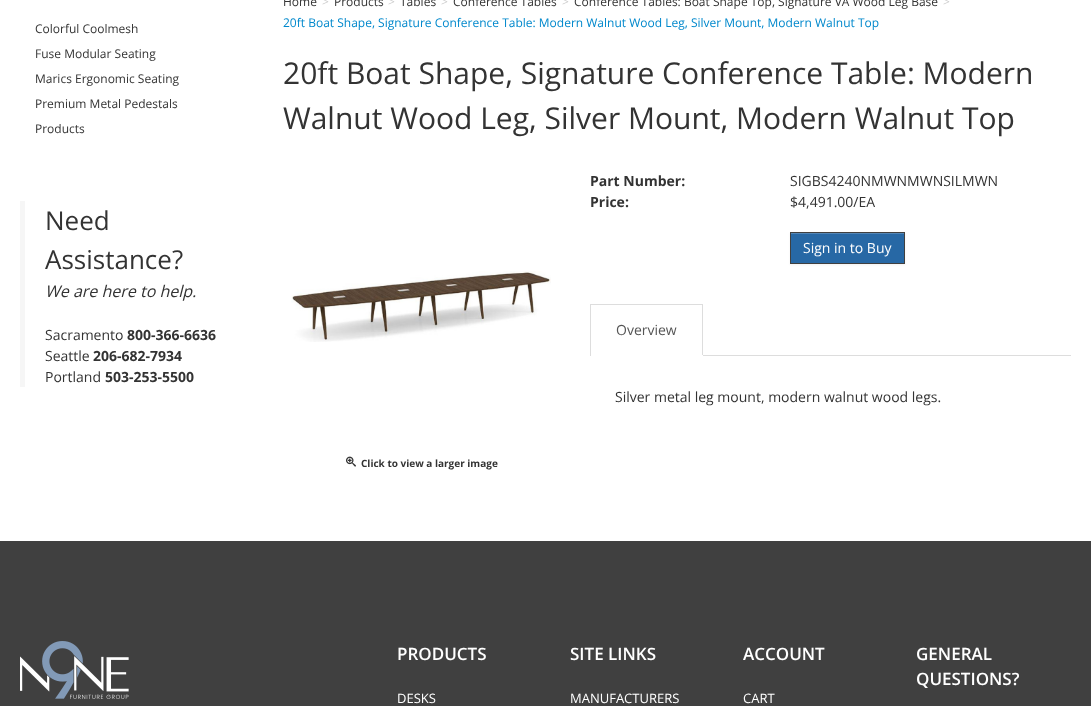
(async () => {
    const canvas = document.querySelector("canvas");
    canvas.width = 1091;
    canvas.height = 706;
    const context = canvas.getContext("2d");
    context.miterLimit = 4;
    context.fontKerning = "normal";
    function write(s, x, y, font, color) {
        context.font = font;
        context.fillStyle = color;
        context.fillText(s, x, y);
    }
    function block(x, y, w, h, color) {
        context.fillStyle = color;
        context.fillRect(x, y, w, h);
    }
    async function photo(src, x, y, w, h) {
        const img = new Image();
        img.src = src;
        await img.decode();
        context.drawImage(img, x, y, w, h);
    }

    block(0, 0, 1091, 706, "rgb(255, 255, 255)");
    write("Colorful Coolmesh", 35, 33, "12px Open Sans", "rgb(51, 51, 51)");
    write("Fuse Modular Seating", 35, 58, "12px Open Sans", "rgb(51, 51, 51)");
    write("Marics Ergonomic Seating", 35, 83, "12px Open Sans", "rgb(51, 51, 51)");
    write("Premium Metal Pedestals", 35, 108, "12px Open Sans", "rgb(51, 51, 51)");
    write("Products", 35, 133, "12px Open Sans", "rgb(51, 51, 51)");
    block(20, 201, 5, 186, "rgb(246, 246, 246)");
    write("Need", 45, 230, "26px Open Sans", "rgb(51, 51, 51)");
    write("Assistance?", 45, 269, "26px Open Sans", "rgb(51, 51, 51)");
    write("We are here to help.", 45, 297, "italic 16px Open Sans", "rgb(51, 51, 51)");
    write("Sacramento", 45, 340, "14px Open Sans", "rgb(51, 51, 51)");
    write("800-366-6636", 127, 340, "bold 14px Open Sans", "rgb(51, 51, 51)");
    write("Seattle", 45, 361, "14px Open Sans", "rgb(51, 51, 51)");
    write("206-682-7934", 93, 361, "bold 14px Open Sans", "rgb(51, 51, 51)");
    write("Portland", 45, 382, "14px Open Sans", "rgb(51, 51, 51)");
    write("503-253-5500", 105, 382, "bold 14px Open Sans", "rgb(51, 51, 51)");
    write("Home", 283, 6, "12px Open Sans", "rgb(51, 51, 51)");
    write(">", 322, 6, "12px Open Sans", "rgb(204, 204, 204)");
    write("Products", 334, 6, "12px Open Sans", "rgb(51, 51, 51)");
    write(">", 388, 6, "12px Open Sans", "rgb(204, 204, 204)");
    write("Tables", 400, 6, "12px Open Sans", "rgb(51, 51, 51)");
    write(">", 441, 6, "12px Open Sans", "rgb(204, 204, 204)");
    write("Conference Tables", 453, 6, "12px Open Sans", "rgb(51, 51, 51)");
    write(">", 562, 6, "12px Open Sans", "rgb(204, 204, 204)");
    write("Conference Tables: Boat Shape Top, Signature VA Wood Leg Base", 574, 6, "12px Open Sans", "rgb(51, 51, 51)");
    write(">", 943, 6, "12px Open Sans", "rgb(204, 204, 204)");
    write("20ft Boat Shape, Signature Conference Table: Modern Walnut Wood Leg, Silver Mount, Modern Walnut Top", 283, 27, "12px Open Sans", "rgb(0, 136, 204)");
    write("20ft Boat Shape, Signature Conference Table: Modern", 283, 84, "30px Open Sans", "rgb(51, 51, 51)");
    write("Walnut Wood Leg, Silver Mount, Modern Walnut Top", 283, 129, "30px Open Sans", "rgb(51, 51, 51)");
    write("Part Number:", 590, 186, "bold 14px Open Sans", "rgb(51, 51, 51)");
    write("SIGBS4240NMWNMWNSILMWN", 790, 186, "14px Open Sans", "rgb(51, 51, 51)");
    write("Price:", 590, 207, "bold 14px Open Sans", "rgb(51, 51, 51)");
    write("$4,491.00/EA", 790, 207, "14px Open Sans", "rgb(51, 51, 51)");
    context.fillStyle = "rgba(0, 0, 0, 0.05)";
    context.filter = "blur(1px)";
    context.beginPath();
    context.rect(790, 233, 115, 32);
    context.fill();
    context.filter = "none";
    block(791, 234, 113, 29, "rgb(39, 104, 165)");
    block(791, 233, 113, 1, "rgb(82, 134, 183)");
    context.strokeStyle = "rgb(64, 64, 64)";
    context.strokeRect(790.5, 232.5, 114, 31);
    write("Sign in to Buy", 803, 253, "14px Open Sans", "rgb(255, 255, 255)");
    block(703, 355, 368, 1, "rgb(221, 221, 221)");
    block(590, 304, 113, 1, "rgb(221, 221, 221)");
    block(702, 304, 1, 52, "rgb(221, 221, 221)");
    block(702, 355, 1, 1, "rgb(255, 255, 255)");
    block(590, 304, 1, 52, "rgb(221, 221, 221)");
    write("Overview", 616, 335, "14px Open Sans", "rgb(85, 85, 85)");
    write("Silver metal leg mount, modern walnut wood legs.", 615, 402, "14px Open Sans", "rgb(51, 51, 51)");
    await photo("media/1.png", 291, 271, 260, 71);
    await photo("media/2.png", 346, 456, 10, 11);
    write("Click to view a larger image", 361, 467, "bold 10px Open Sans", "rgb(51, 51, 51)");
    block(0, 541, 1091, 165, "rgb(64, 64, 64)");
    await photo("media/3.png", 20, 641, 109, 58);
    write("PRODUCTS", 397, 660, "600 17px Open Sans", "rgb(255, 255, 255)");
    write("DESKS", 397, 703, "13px Open Sans", "rgb(255, 255, 255)");
    write("SITE LINKS", 570, 660, "600 17px Open Sans", "rgb(255, 255, 255)");
    write("MANUFACTURERS", 570, 703, "13px Open Sans", "rgb(255, 255, 255)");
    write("ACCOUNT", 743, 660, "600 17px Open Sans", "rgb(255, 255, 255)");
    write("CART", 743, 703, "13px Open Sans", "rgb(255, 255, 255)");
    write("GENERAL", 916, 660, "600 17px Open Sans", "rgb(255, 255, 255)");
    write("QUESTIONS?", 916, 685, "600 17px Open Sans", "rgb(255, 255, 255)");
})();
